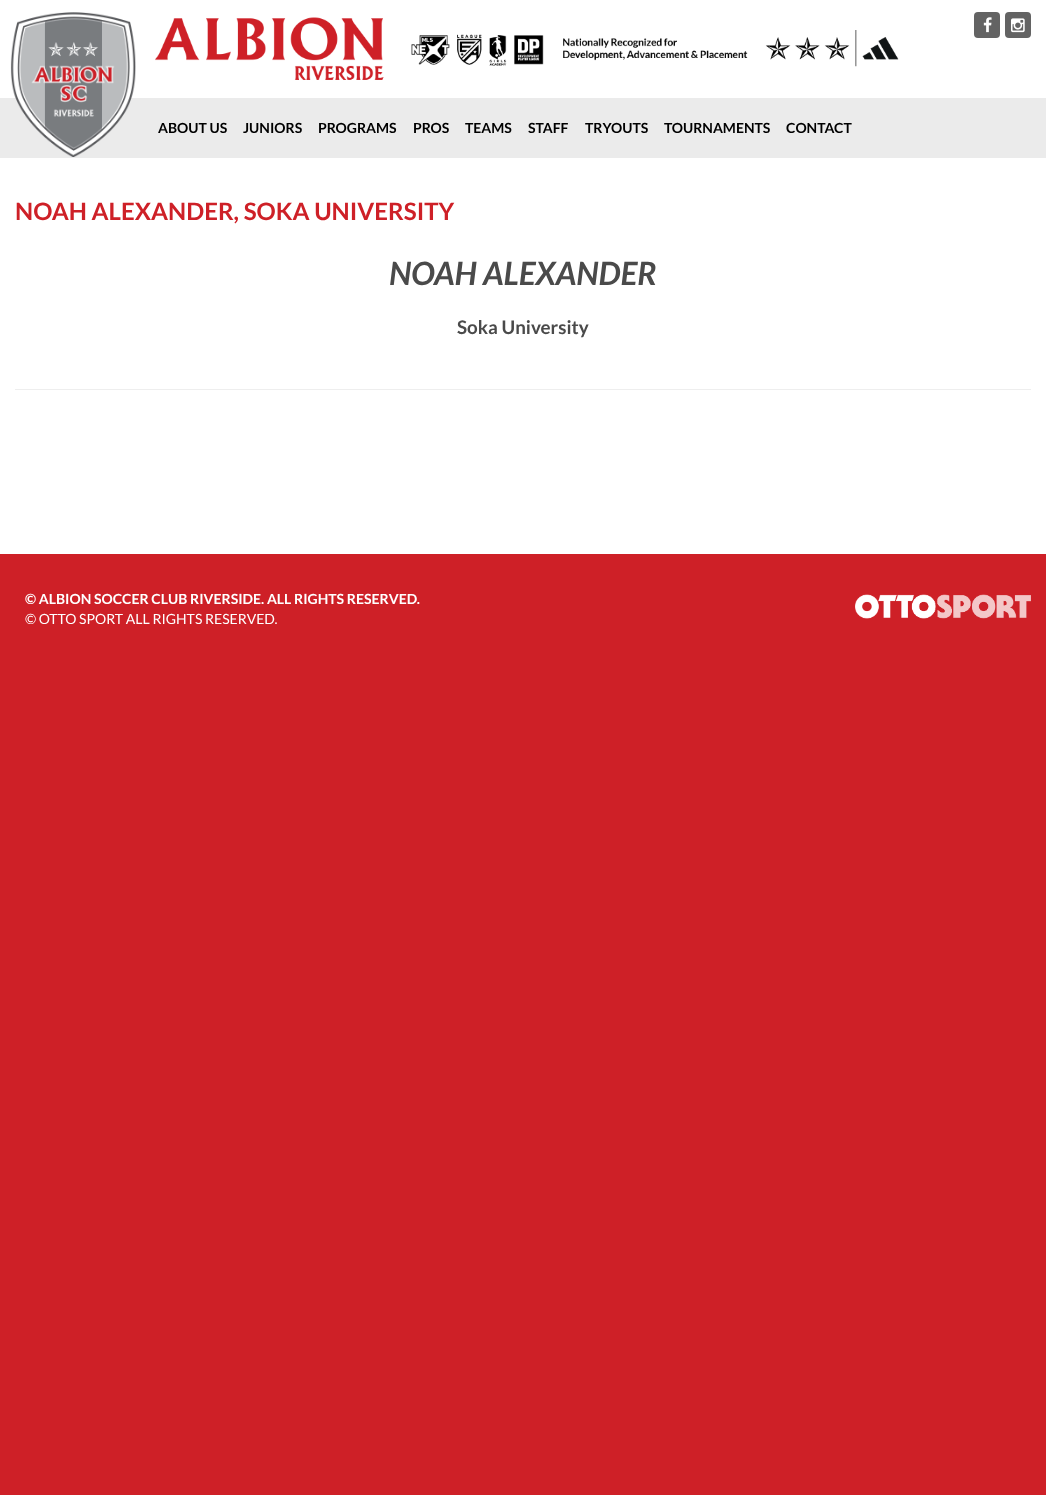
(async () => {
    const canvas = document.querySelector("canvas");
    canvas.width = 1046;
    canvas.height = 1495;
    const context = canvas.getContext("2d");
    context.miterLimit = 4;
    context.fontKerning = "normal";
    function write(s, x, y, font, color) {
        context.font = font;
        context.fillStyle = color;
        context.fillText(s, x, y);
    }
    function block(x, y, w, h, color) {
        context.fillStyle = color;
        context.fillRect(x, y, w, h);
    }
    function card(x, y, w, h, r, color) {
        context.fillStyle = color;
        context.beginPath();
        context.roundRect(x, y, w, h, r);
        context.fill();
    }
    async function photo(src, x, y, w, h) {
        const img = new Image();
        img.src = src;
        await img.decode();
        context.drawImage(img, x, y, w, h);
    }

    block(0, 0, 1046, 1495, "rgb(206, 32, 39)");
    block(0, 0, 1046, 554, "rgb(255, 255, 255)");
    block(0, 98, 1046, 60, "rgb(235, 235, 235)");
    await photo("media/1.png", 10, 12, 126, 145);
    await photo("media/2.png", 155, 17, 744, 63);
    card(974, 12, 26, 26, 4, "rgb(99, 99, 99)");
    await photo("media/3.png", 983, 17, 9, 16);
    card(1005, 12, 26, 26, 4, "rgb(99, 99, 99)");
    await photo("media/4.png", 1011, 18, 14, 15);
    write("ABOUT US", 158, 133, "bold 14px Lato", "rgb(0, 0, 0)");
    write("JUNIORS", 243, 133, "bold 14px Lato", "rgb(0, 0, 0)");
    write("PROGRAMS", 318, 133, "bold 14px Lato", "rgb(0, 0, 0)");
    write("PROS", 413, 133, "bold 14px Lato", "rgb(0, 0, 0)");
    write("TEAMS", 465, 133, "bold 14px Lato", "rgb(0, 0, 0)");
    write("STAFF", 528, 133, "bold 14px Lato", "rgb(0, 0, 0)");
    write("TRYOUTS", 585, 133, "bold 14px Lato", "rgb(0, 0, 0)");
    write("TOURNAMENTS", 664, 133, "bold 14px Lato", "rgb(0, 0, 0)");
    write("CONTACT", 786, 133, "bold 14px Lato", "rgb(0, 0, 0)");
    write("NOAH ALEXANDER, SOKA UNIVERSITY", 15, 220, "bold 24px Lato", "rgb(206, 32, 39)");
    write("NOAH ALEXANDER", 389, 285, "italic bold 32px Lato", "rgb(74, 74, 74)");
    write("Soka University", 457, 334, "bold 18.75px Lato", "rgb(74, 74, 74)");
    block(15, 389, 1016, 1, "rgb(238, 238, 238)");
    write("© ALBION SOCCER CLUB RIVERSIDE. ALL RIGHTS RESERVED.", 25, 604, "bold 14px Lato", "rgb(255, 255, 255)");
    write("© OTTO SPORT ALL RIGHTS RESERVED.", 25, 624, "14px Lato", "rgb(255, 255, 255)");
    await photo("media/5.png", 855, 594, 176, 25);
})();
